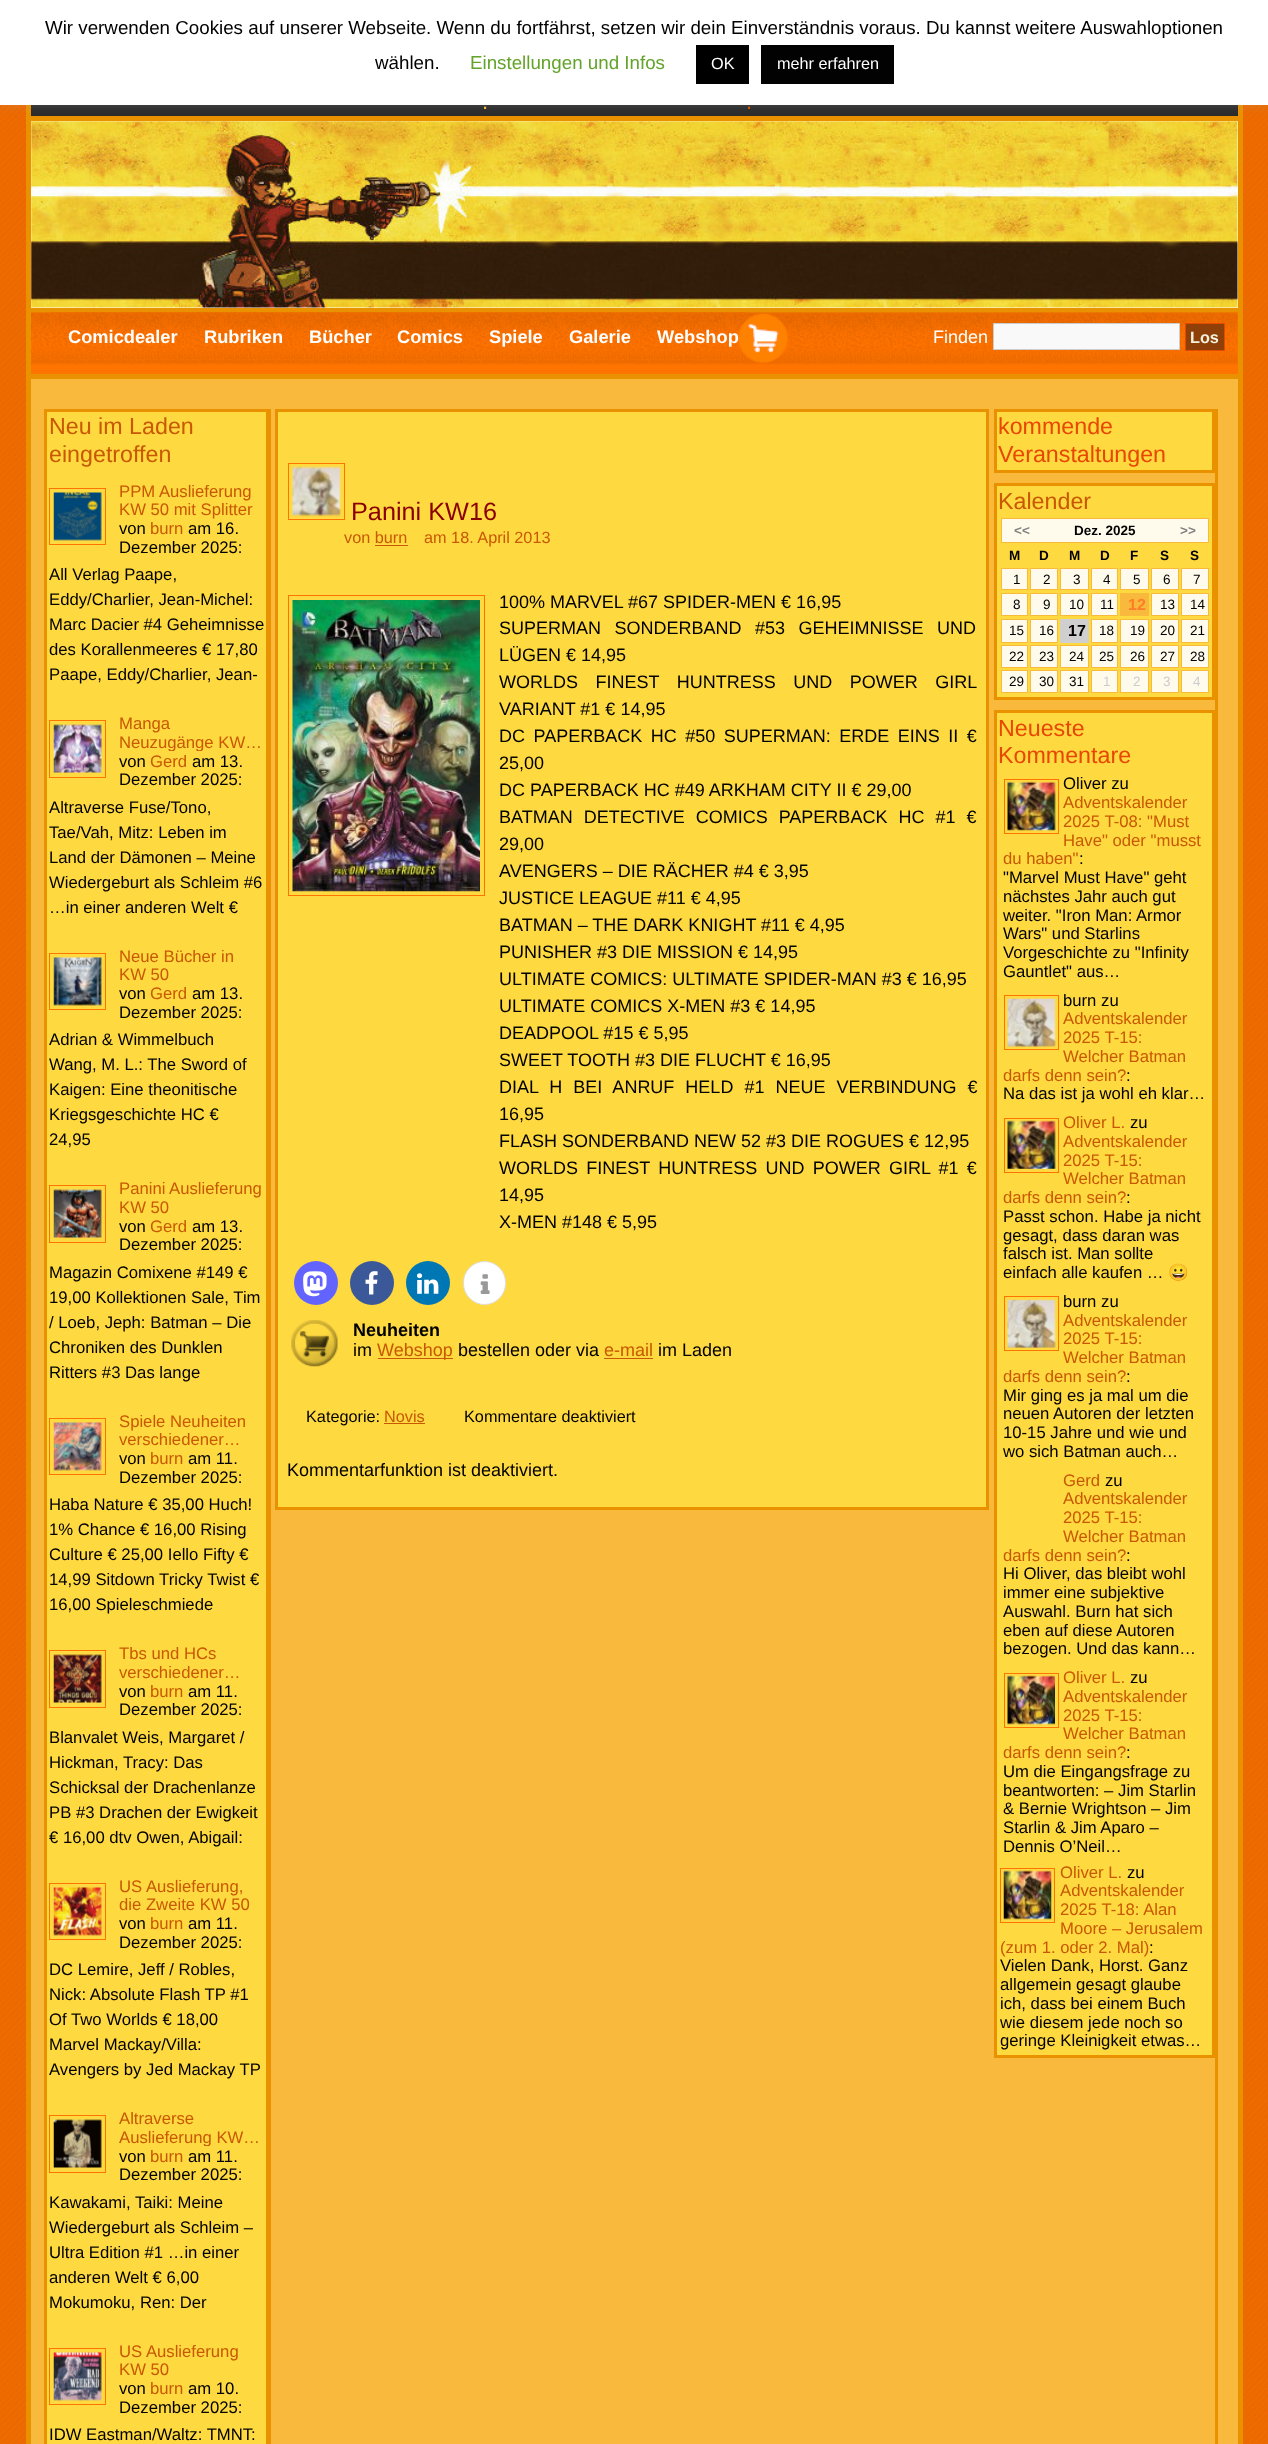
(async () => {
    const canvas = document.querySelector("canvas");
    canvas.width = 1268;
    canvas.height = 2444;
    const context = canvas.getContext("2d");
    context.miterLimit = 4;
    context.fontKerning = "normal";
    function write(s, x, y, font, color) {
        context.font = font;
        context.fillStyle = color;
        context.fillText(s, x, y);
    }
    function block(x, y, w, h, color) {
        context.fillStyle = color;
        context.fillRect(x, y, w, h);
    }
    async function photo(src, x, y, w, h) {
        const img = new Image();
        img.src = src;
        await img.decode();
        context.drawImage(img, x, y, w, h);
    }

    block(0, 0, 1268, 2444, "rgb(255, 255, 255)");
    await photo("media/1.png", 0, 105, 1268, 2339);
    block(31, 379, 1207, 2065, "rgb(248, 185, 60)");
    context.strokeStyle = "rgb(234, 145, 0)";
    context.lineWidth = 5;
    context.strokeRect(28.5, -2.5, 1212, 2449);
    block(31, 105, 1207, 11, "rgb(43, 43, 43)");
    block(31, 116, 1207, 5, "rgb(234, 145, 0)");
    block(31, 121, 1207, 187, "rgb(255, 255, 255)");
    await photo("media/2.png", 31, 121, 1207, 187);
    context.fillStyle = "rgba(172, 171, 171, 0.3)";
    context.filter = "blur(6px)";
    context.beginPath();
    context.rect(0, -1, 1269, 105);
    context.fill();
    context.filter = "none";
    block(0, 0, 1268, 105, "rgb(255, 255, 255)");
    write("Wir verwenden Cookies auf unserer Webseite. Wenn du fortfährst, setzen wir dein Einverständnis voraus. Du kannst weitere Auswahloptionen", 45, 34, "18.75px Liberation Sans", "rgb(0, 0, 0)");
    write("wählen.", 375, 69, "18.75px Liberation Sans", "rgb(0, 0, 0)");
    write("Einstellungen und Infos", 470, 69, "18.75px Liberation Sans", "rgb(98, 163, 41)");
    block(696, 45, 53, 39, "rgb(0, 0, 0)");
    write("OK", 711, 69, "16.25px Liberation Sans", "rgb(255, 255, 255)");
    block(761, 45, 133, 39, "rgb(2, 2, 2)");
    write("mehr erfahren", 777, 69, "16.25px Liberation Sans", "rgb(255, 255, 255)");
    write(".", 482, 109, "22px Liberation Sans", "rgb(248, 185, 60)");
    write(".", 746, 109, "22px Liberation Sans", "rgb(200, 88, 2)");
    block(31, 308, 1207, 5, "rgb(234, 145, 0)");
    block(31, 313, 1207, 61, "rgb(255, 115, 0)");
    await photo("media/3.png", 31, 312, 1207, 53);
    block(31, 374, 1207, 5, "rgb(234, 145, 0)");
    block(50, 313, 696, 47, "rgb(255, 115, 0)");
    await photo("media/4.png", 50, 312, 697, 48);
    write("Comicdealer", 68, 343, "bold 18.25px Liberation Sans", "rgb(255, 255, 255)");
    write("Rubriken", 204, 343, "bold 18.25px Liberation Sans", "rgb(255, 255, 255)");
    write("Bücher", 309, 343, "bold 18.25px Liberation Sans", "rgb(255, 255, 255)");
    write("Comics", 397, 343, "bold 18.25px Liberation Sans", "rgb(255, 255, 255)");
    write("Spiele", 489, 343, "bold 18.25px Liberation Sans", "rgb(255, 255, 255)");
    write("Galerie", 569, 343, "bold 18.25px Liberation Sans", "rgb(255, 255, 255)");
    write("Webshop", 657, 343, "bold 18.25px Liberation Sans", "rgb(255, 255, 255)");
    await photo("media/5.png", 738, 313, 50, 50);
    write("Finden", 933, 343, "18px Liberation Sans", "rgb(255, 255, 255)");
    context.fillStyle = "rgb(249, 249, 249)";
    context.beginPath();
    context.rect(993.5, 323.5, 186, 26);
    context.fill();
    context.strokeStyle = "rgb(204, 204, 204)";
    context.lineWidth = 1;
    context.stroke();
    context.fillStyle = "rgb(143, 64, 8)";
    context.beginPath();
    context.rect(1185.5, 323.5, 39, 27);
    context.fill();
    context.strokeStyle = "rgb(232, 71, 0)";
    context.stroke();
    write("Los", 1190, 343, "bold 16.25px Liberation Sans", "rgb(242, 243, 222)");
    block(44, 409, 227, 2, "rgb(234, 145, 0)");
    block(269, 409, 2, 2035, "rgb(234, 145, 0)");
    block(47, 412, 219, 2032, "rgb(255, 217, 64)");
    context.save();
    context.beginPath();
    context.rect(44, 411, 225, 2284);
    context.clip();
    context.strokeStyle = "rgb(234, 145, 0)";
    context.lineWidth = 3;
    context.strokeRect(45.5, 410.5, 222, 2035);
    context.restore();
    write("Neu im Laden", 49, 434, "23.25px Liberation Sans", "rgb(200, 88, 2)");
    write("eingetroffen", 49, 462, "23.25px Liberation Sans", "rgb(200, 88, 2)");
    context.strokeStyle = "rgb(255, 115, 0)";
    context.strokeRect(49.5, 488.5, 56, 56);
    await photo("media/6.png", 53, 492, 49, 49);
    write("PPM Auslieferung", 119, 497, "16.7px Liberation Sans", "rgb(200, 88, 2)");
    write("KW 50 mit Splitter", 119, 515, "16.7px Liberation Sans", "rgb(200, 88, 2)");
    write("von", 119, 534, "16.7px Liberation Sans", "rgb(0, 0, 0)");
    write("burn", 150, 534, "16.7px Liberation Sans", "rgb(200, 88, 2)");
    write("am 16.", 188, 534, "16.7px Liberation Sans", "rgb(0, 0, 0)");
    write("Dezember 2025:", 119, 553, "16.7px Liberation Sans", "rgb(0, 0, 0)");
    write("All Verlag Paape,", 49, 580, "16.7px Liberation Sans", "rgb(0, 0, 0)");
    write("Eddy/Charlier, Jean-Michel:", 49, 605, "16.7px Liberation Sans", "rgb(0, 0, 0)");
    write("Marc Dacier #4 Geheimnisse", 49, 630, "16.7px Liberation Sans", "rgb(0, 0, 0)");
    write("des Korallenmeeres € 17,80", 49, 655, "16.7px Liberation Sans", "rgb(0, 0, 0)");
    write("Paape, Eddy/Charlier, Jean-", 49, 680, "16.7px Liberation Sans", "rgb(0, 0, 0)");
    context.strokeRect(49.5, 720.5, 56, 57);
    await photo("media/7.png", 53, 724, 49, 49);
    write("Manga", 119, 729, "16.7px Liberation Sans", "rgb(200, 88, 2)");
    context.save();
    context.beginPath();
    context.rect(119, 714, 145, 37);
    context.clip();
    write("Neuzugänge KW…", 119, 748, "16.7px Liberation Sans", "rgb(200, 88, 2)");
    context.restore();
    write("von", 119, 767, "16.7px Liberation Sans", "rgb(0, 0, 0)");
    write("Gerd", 150, 767, "16.7px Liberation Sans", "rgb(200, 88, 2)");
    write("am 13.", 192, 767, "16.7px Liberation Sans", "rgb(0, 0, 0)");
    write("Dezember 2025:", 119, 785, "16.7px Liberation Sans", "rgb(0, 0, 0)");
    write("Altraverse Fuse/Tono,", 49, 813, "16.7px Liberation Sans", "rgb(0, 0, 0)");
    write("Tae/Vah, Mitz: Leben im", 49, 838, "16.7px Liberation Sans", "rgb(0, 0, 0)");
    write("Land der Dämonen – Meine", 49, 863, "16.7px Liberation Sans", "rgb(0, 0, 0)");
    write("Wiedergeburt als Schleim #6", 49, 888, "16.7px Liberation Sans", "rgb(0, 0, 0)");
    write("…in einer anderen Welt €", 49, 913, "16.7px Liberation Sans", "rgb(0, 0, 0)");
    context.strokeRect(49.5, 953.5, 56, 56);
    await photo("media/8.png", 53, 957, 49, 49);
    write("Neue Bücher in", 119, 962, "16.7px Liberation Sans", "rgb(200, 88, 2)");
    write("KW 50", 119, 980, "16.7px Liberation Sans", "rgb(200, 88, 2)");
    write("von", 119, 999, "16.7px Liberation Sans", "rgb(0, 0, 0)");
    write("Gerd", 150, 999, "16.7px Liberation Sans", "rgb(200, 88, 2)");
    write("am 13.", 192, 999, "16.7px Liberation Sans", "rgb(0, 0, 0)");
    write("Dezember 2025:", 119, 1018, "16.7px Liberation Sans", "rgb(0, 0, 0)");
    write("Adrian & Wimmelbuch", 49, 1045, "16.7px Liberation Sans", "rgb(0, 0, 0)");
    write("Wang, M. L.: The Sword of", 49, 1070, "16.7px Liberation Sans", "rgb(0, 0, 0)");
    write("Kaigen: Eine theonitische", 49, 1095, "16.7px Liberation Sans", "rgb(0, 0, 0)");
    write("Kriegsgeschichte HC €", 49, 1120, "16.7px Liberation Sans", "rgb(0, 0, 0)");
    write("24,95", 49, 1145, "16.7px Liberation Sans", "rgb(0, 0, 0)");
    context.strokeRect(49.5, 1185.5, 56, 57);
    await photo("media/9.png", 53, 1189, 49, 49);
    write("Panini Auslieferung", 119, 1194, "16.7px Liberation Sans", "rgb(200, 88, 2)");
    write("KW 50", 119, 1213, "16.7px Liberation Sans", "rgb(200, 88, 2)");
    write("von", 119, 1232, "16.7px Liberation Sans", "rgb(0, 0, 0)");
    write("Gerd", 150, 1232, "16.7px Liberation Sans", "rgb(200, 88, 2)");
    write("am 13.", 192, 1232, "16.7px Liberation Sans", "rgb(0, 0, 0)");
    write("Dezember 2025:", 119, 1250, "16.7px Liberation Sans", "rgb(0, 0, 0)");
    write("Magazin Comixene #149 €", 49, 1278, "16.7px Liberation Sans", "rgb(0, 0, 0)");
    write("19,00 Kollektionen Sale, Tim", 49, 1303, "16.7px Liberation Sans", "rgb(0, 0, 0)");
    write("/ Loeb, Jeph: Batman – Die", 49, 1328, "16.7px Liberation Sans", "rgb(0, 0, 0)");
    write("Chroniken des Dunklen", 49, 1353, "16.7px Liberation Sans", "rgb(0, 0, 0)");
    write("Ritters #3 Das lange", 49, 1378, "16.7px Liberation Sans", "rgb(0, 0, 0)");
    context.strokeRect(49.5, 1418.5, 56, 56);
    await photo("media/10.png", 53, 1422, 49, 49);
    write("Spiele Neuheiten", 119, 1427, "16.7px Liberation Sans", "rgb(200, 88, 2)");
    write("verschiedener…", 119, 1445, "16.7px Liberation Sans", "rgb(200, 88, 2)");
    write("von", 119, 1464, "16.7px Liberation Sans", "rgb(0, 0, 0)");
    write("burn", 150, 1464, "16.7px Liberation Sans", "rgb(200, 88, 2)");
    write("am 11.", 188, 1464, "16.7px Liberation Sans", "rgb(0, 0, 0)");
    write("Dezember 2025:", 119, 1483, "16.7px Liberation Sans", "rgb(0, 0, 0)");
    write("Haba Nature € 35,00 Huch!", 49, 1510, "16.7px Liberation Sans", "rgb(0, 0, 0)");
    write("1% Chance € 16,00 Rising", 49, 1535, "16.7px Liberation Sans", "rgb(0, 0, 0)");
    write("Culture € 25,00 Iello Fifty €", 49, 1560, "16.7px Liberation Sans", "rgb(0, 0, 0)");
    write("14,99 Sitdown Tricky Twist €", 49, 1585, "16.7px Liberation Sans", "rgb(0, 0, 0)");
    write("16,00 Spieleschmiede", 49, 1610, "16.7px Liberation Sans", "rgb(0, 0, 0)");
    context.strokeRect(49.5, 1650.5, 56, 57);
    await photo("media/11.png", 53, 1654, 49, 49);
    write("Tbs und HCs", 119, 1659, "16.7px Liberation Sans", "rgb(200, 88, 2)");
    write("verschiedener…", 119, 1678, "16.7px Liberation Sans", "rgb(200, 88, 2)");
    write("von", 119, 1697, "16.7px Liberation Sans", "rgb(0, 0, 0)");
    write("burn", 150, 1697, "16.7px Liberation Sans", "rgb(200, 88, 2)");
    write("am 11.", 188, 1697, "16.7px Liberation Sans", "rgb(0, 0, 0)");
    write("Dezember 2025:", 119, 1715, "16.7px Liberation Sans", "rgb(0, 0, 0)");
    write("Blanvalet Weis, Margaret /", 49, 1743, "16.7px Liberation Sans", "rgb(0, 0, 0)");
    write("Hickman, Tracy: Das", 49, 1768, "16.7px Liberation Sans", "rgb(0, 0, 0)");
    write("Schicksal der Drachenlanze", 49, 1793, "16.7px Liberation Sans", "rgb(0, 0, 0)");
    write("PB #3 Drachen der Ewigkeit", 49, 1818, "16.7px Liberation Sans", "rgb(0, 0, 0)");
    write("€ 16,00 dtv Owen, Abigail:", 49, 1843, "16.7px Liberation Sans", "rgb(0, 0, 0)");
    context.strokeRect(49.5, 1883.5, 56, 56);
    await photo("media/12.png", 53, 1887, 49, 49);
    write("US Auslieferung,", 119, 1892, "16.7px Liberation Sans", "rgb(200, 88, 2)");
    write("die Zweite KW 50", 119, 1910, "16.7px Liberation Sans", "rgb(200, 88, 2)");
    write("von", 119, 1929, "16.7px Liberation Sans", "rgb(0, 0, 0)");
    write("burn", 150, 1929, "16.7px Liberation Sans", "rgb(200, 88, 2)");
    write("am 11.", 188, 1929, "16.7px Liberation Sans", "rgb(0, 0, 0)");
    write("Dezember 2025:", 119, 1948, "16.7px Liberation Sans", "rgb(0, 0, 0)");
    write("DC Lemire, Jeff / Robles,", 49, 1975, "16.7px Liberation Sans", "rgb(0, 0, 0)");
    write("Nick: Absolute Flash TP #1", 49, 2000, "16.7px Liberation Sans", "rgb(0, 0, 0)");
    write("Of Two Worlds € 18,00", 49, 2025, "16.7px Liberation Sans", "rgb(0, 0, 0)");
    write("Marvel Mackay/Villa:", 49, 2050, "16.7px Liberation Sans", "rgb(0, 0, 0)");
    write("Avengers by Jed Mackay TP", 49, 2075, "16.7px Liberation Sans", "rgb(0, 0, 0)");
    context.strokeRect(49.5, 2115.5, 56, 57);
    await photo("media/13.png", 53, 2119, 49, 49);
    write("Altraverse", 119, 2124, "16.7px Liberation Sans", "rgb(200, 88, 2)");
    context.save();
    context.beginPath();
    context.rect(119, 2109, 145, 37);
    context.clip();
    write("Auslieferung KW…", 119, 2143, "16.7px Liberation Sans", "rgb(200, 88, 2)");
    context.restore();
    write("von", 119, 2162, "16.7px Liberation Sans", "rgb(0, 0, 0)");
    write("burn", 150, 2162, "16.7px Liberation Sans", "rgb(200, 88, 2)");
    write("am 11.", 188, 2162, "16.7px Liberation Sans", "rgb(0, 0, 0)");
    write("Dezember 2025:", 119, 2180, "16.7px Liberation Sans", "rgb(0, 0, 0)");
    write("Kawakami, Taiki: Meine", 49, 2208, "16.7px Liberation Sans", "rgb(0, 0, 0)");
    write("Wiedergeburt als Schleim –", 49, 2233, "16.7px Liberation Sans", "rgb(0, 0, 0)");
    write("Ultra Edition #1 …in einer", 49, 2258, "16.7px Liberation Sans", "rgb(0, 0, 0)");
    write("anderen Welt € 6,00", 49, 2283, "16.7px Liberation Sans", "rgb(0, 0, 0)");
    write("Mokumoku, Ren: Der", 49, 2308, "16.7px Liberation Sans", "rgb(0, 0, 0)");
    context.strokeRect(49.5, 2348.5, 56, 56);
    await photo("media/14.png", 53, 2352, 49, 49);
    write("US Auslieferung", 119, 2357, "16.7px Liberation Sans", "rgb(200, 88, 2)");
    write("KW 50", 119, 2375, "16.7px Liberation Sans", "rgb(200, 88, 2)");
    write("von", 119, 2394, "16.7px Liberation Sans", "rgb(0, 0, 0)");
    write("burn", 150, 2394, "16.7px Liberation Sans", "rgb(200, 88, 2)");
    write("am 10.", 188, 2394, "16.7px Liberation Sans", "rgb(0, 0, 0)");
    write("Dezember 2025:", 119, 2413, "16.7px Liberation Sans", "rgb(0, 0, 0)");
    write("IDW Eastman/Waltz: TMNT:", 49, 2440, "16.7px Liberation Sans", "rgb(0, 0, 0)");
    context.fillStyle = "rgb(255, 217, 64)";
    context.beginPath();
    context.rect(276.5, 410.5, 711, 1098);
    context.fill();
    context.strokeStyle = "rgb(234, 145, 0)";
    context.lineWidth = 3;
    context.stroke();
    context.strokeStyle = "rgb(255, 115, 0)";
    context.lineWidth = 1;
    context.strokeRect(288.5, 463.5, 56, 56);
    await photo("media/15.png", 292, 466, 50, 51);
    write("Panini KW16", 351, 520, "25.25px Liberation Sans", "rgb(137, 0, 0)");
    write("von burn", 344, 543, "16.25px Liberation Sans", "rgb(200, 88, 2)");
    block(375, 545, 33, 1, "rgb(200, 88, 2)");
    write("am 18. April 2013", 424, 543, "16.25px Liberation Sans", "rgb(200, 88, 2)");
    context.strokeRect(288.5, 595.5, 196, 300);
    await photo("media/16.png", 292, 600, 188, 292);
    write("100% MARVEL #67 SPIDER-MEN € 16,95", 499, 608, "18px Liberation Sans", "rgb(0, 0, 0)");
    context.wordSpacing = "8.5px";
    write("SUPERMAN SONDERBAND #53 GEHEIMNISSE UND", 499, 634, "18px Liberation Sans", "rgb(0, 0, 0)");
    context.wordSpacing = "0px";
    write("LÜGEN € 14,95", 499, 661, "18px Liberation Sans", "rgb(0, 0, 0)");
    context.wordSpacing = "12.5px";
    write("WORLDS FINEST HUNTRESS UND POWER GIRL", 499, 688, "18px Liberation Sans", "rgb(0, 0, 0)");
    context.wordSpacing = "0px";
    write("VARIANT #1 € 14,95", 499, 715, "18px Liberation Sans", "rgb(0, 0, 0)");
    context.wordSpacing = "3.5px";
    write("DC PAPERBACK HC #50 SUPERMAN: ERDE EINS II €", 499, 742, "18px Liberation Sans", "rgb(0, 0, 0)");
    context.wordSpacing = "0px";
    write("25,00", 499, 769, "18px Liberation Sans", "rgb(0, 0, 0)");
    write("DC PAPERBACK HC #49 ARKHAM CITY II € 29,00", 499, 796, "18px Liberation Sans", "rgb(0, 0, 0)");
    context.wordSpacing = "6px";
    write("BATMAN DETECTIVE COMICS PAPERBACK HC #1 €", 499, 823, "18px Liberation Sans", "rgb(0, 0, 0)");
    context.wordSpacing = "0px";
    write("29,00", 499, 850, "18px Liberation Sans", "rgb(0, 0, 0)");
    write("AVENGERS – DIE RÄCHER #4 € 3,95", 499, 877, "18px Liberation Sans", "rgb(0, 0, 0)");
    write("JUSTICE LEAGUE #11 € 4,95", 499, 904, "18px Liberation Sans", "rgb(0, 0, 0)");
    write("BATMAN – THE DARK KNIGHT #11 € 4,95", 499, 931, "18px Liberation Sans", "rgb(0, 0, 0)");
    write("PUNISHER #3 DIE MISSION € 14,95", 499, 958, "18px Liberation Sans", "rgb(0, 0, 0)");
    write("ULTIMATE COMICS: ULTIMATE SPIDER-MAN #3 € 16,95", 499, 985, "18px Liberation Sans", "rgb(0, 0, 0)");
    write("ULTIMATE COMICS X-MEN #3 € 14,95", 499, 1012, "18px Liberation Sans", "rgb(0, 0, 0)");
    write("DEADPOOL #15 € 5,95", 499, 1039, "18px Liberation Sans", "rgb(0, 0, 0)");
    write("SWEET TOOTH #3 DIE FLUCHT € 16,95", 499, 1066, "18px Liberation Sans", "rgb(0, 0, 0)");
    context.wordSpacing = "6px";
    write("DIAL H BEI ANRUF HELD #1 NEUE VERBINDUNG €", 499, 1093, "18px Liberation Sans", "rgb(0, 0, 0)");
    context.wordSpacing = "0px";
    write("16,95", 499, 1120, "18px Liberation Sans", "rgb(0, 0, 0)");
    write("FLASH SONDERBAND NEW 52 #3 DIE ROGUES € 12,95", 499, 1147, "18px Liberation Sans", "rgb(0, 0, 0)");
    context.wordSpacing = "3.25px";
    write("WORLDS FINEST HUNTRESS UND POWER GIRL #1 €", 499, 1174, "18px Liberation Sans", "rgb(0, 0, 0)");
    context.wordSpacing = "0px";
    write("14,95", 499, 1201, "18px Liberation Sans", "rgb(0, 0, 0)");
    write("X-MEN #148 € 5,95", 499, 1228, "18px Liberation Sans", "rgb(0, 0, 0)");
    context.fillStyle = "rgb(99, 100, 255)";
    context.beginPath();
    context.arc(316, 1283, 22, 0, Math.PI * 2);
    context.fill();
    await photo("media/17.png", 303, 1271, 24, 26);
    context.fillStyle = "rgb(59, 89, 152)";
    context.beginPath();
    context.arc(372, 1283, 22, 0, Math.PI * 2);
    context.fill();
    await photo("media/18.png", 365, 1271, 13, 24);
    context.fillStyle = "rgb(0, 119, 181)";
    context.beginPath();
    context.arc(428, 1283, 22, 0, Math.PI * 2);
    context.fill();
    await photo("media/19.png", 417, 1273, 22, 21);
    context.fillStyle = "rgb(255, 255, 255)";
    context.beginPath();
    context.roundRect(463.5, 1261.5, 42, 43, 21);
    context.fill();
    context.strokeStyle = "rgb(221, 221, 221)";
    context.stroke();
    await photo("media/20.png", 480, 1274, 10, 20);
    await photo("media/21.png", 291, 1320, 47, 47);
    write("Neuheiten", 353, 1336, "bold 18px Liberation Sans", "rgb(0, 0, 0)");
    write("im", 353, 1356, "18px Liberation Sans", "rgb(0, 0, 0)");
    block(378, 1358, 75, 1, "rgb(200, 88, 2)");
    write("Webshop", 377, 1356, "18px Liberation Sans", "rgb(200, 88, 2)");
    write("bestellen oder via", 458, 1356, "18px Liberation Sans", "rgb(0, 0, 0)");
    write("e-mail", 604, 1356, "18px Liberation Sans", "rgb(200, 88, 2)");
    block(604, 1358, 49, 1, "rgb(200, 88, 2)");
    write("im Laden", 658, 1356, "18px Liberation Sans", "rgb(0, 0, 0)");
    write("Kategorie:", 306, 1422, "16.25px Liberation Sans", "rgb(0, 0, 0)");
    write("Novis", 384, 1422, "16.25px Liberation Sans", "rgb(200, 88, 2)");
    block(384, 1423, 41, 1, "rgb(200, 88, 2)");
    write("Kommentare deaktiviert", 464, 1422, "16.25px Liberation Sans", "rgb(0, 0, 0)");
    write("Kommentarfunktion ist deaktiviert.", 287, 1476, "18px Liberation Sans", "rgb(0, 0, 0)");
    block(994, 409, 224, 2, "rgb(234, 145, 0)");
    block(1215, 409, 3, 2035, "rgb(234, 145, 0)");
    block(997, 412, 215, 58, "rgb(255, 217, 64)");
    context.save();
    context.beginPath();
    context.rect(994, 411, 221, 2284);
    context.clip();
    context.strokeStyle = "rgb(234, 145, 0)";
    context.lineWidth = 3;
    context.strokeRect(995.5, 410.5, 218, 61);
    context.restore();
    write("kommende", 998, 434, "23.25px Liberation Sans", "rgb(232, 71, 0)");
    write("Veranstaltungen", 998, 462, "23.25px Liberation Sans", "rgb(232, 71, 0)");
    context.fillStyle = "rgb(255, 217, 64)";
    context.beginPath();
    context.rect(995.5, 484.5, 218, 214);
    context.fill();
    context.strokeStyle = "rgb(234, 145, 0)";
    context.lineWidth = 3;
    context.stroke();
    write("Kalender", 998, 509, "23.25px Liberation Sans", "rgb(200, 88, 2)");
    context.fillStyle = "rgb(255, 251, 236)";
    context.beginPath();
    context.rect(1001.5, 518.5, 207, 24);
    context.fill();
    context.strokeStyle = "rgb(248, 185, 60)";
    context.lineWidth = 1;
    context.stroke();
    write("<<", 1014, 535, "bold 13.5px Liberation Sans", "rgb(128, 128, 128)");
    write("Dez. 2025", 1074, 535, "bold 13.5px Liberation Sans", "rgb(0, 0, 0)");
    write(">>", 1180, 535, "bold 13.5px Liberation Sans", "rgb(128, 128, 128)");
    write("M", 1009, 560, "bold 13.5px Liberation Sans", "rgb(0, 0, 0)");
    write("D", 1039, 560, "bold 13.5px Liberation Sans", "rgb(0, 0, 0)");
    write("M", 1069, 560, "bold 13.5px Liberation Sans", "rgb(0, 0, 0)");
    write("D", 1100, 560, "bold 13.5px Liberation Sans", "rgb(0, 0, 0)");
    write("F", 1130, 560, "bold 13.5px Liberation Sans", "rgb(0, 0, 0)");
    write("S", 1160, 560, "bold 13.5px Liberation Sans", "rgb(0, 0, 0)");
    write("S", 1190, 560, "bold 13.5px Liberation Sans", "rgb(0, 0, 0)");
    context.fillStyle = "rgb(255, 251, 236)";
    context.beginPath();
    context.rect(1001.5, 568.5, 26, 21);
    context.fill();
    context.stroke();
    write("1", 1013, 584, "13.5px Liberation Sans", "rgb(0, 0, 0)");
    context.fillStyle = "rgb(255, 251, 236)";
    context.beginPath();
    context.rect(1030.5, 568.5, 27, 21);
    context.fill();
    context.stroke();
    write("2", 1043, 584, "13.5px Liberation Sans", "rgb(0, 0, 0)");
    context.fillStyle = "rgb(255, 251, 236)";
    context.beginPath();
    context.rect(1060.5, 568.5, 28, 21);
    context.fill();
    context.stroke();
    write("3", 1073, 584, "13.5px Liberation Sans", "rgb(0, 0, 0)");
    context.fillStyle = "rgb(255, 251, 236)";
    context.beginPath();
    context.rect(1091.5, 568.5, 26, 21);
    context.fill();
    context.stroke();
    write("4", 1103, 584, "13.5px Liberation Sans", "rgb(0, 0, 0)");
    context.fillStyle = "rgb(255, 251, 236)";
    context.beginPath();
    context.rect(1120.5, 568.5, 28, 21);
    context.fill();
    context.stroke();
    write("5", 1133, 584, "13.5px Liberation Sans", "rgb(0, 0, 0)");
    context.fillStyle = "rgb(255, 251, 236)";
    context.beginPath();
    context.rect(1151.5, 568.5, 27, 21);
    context.fill();
    context.stroke();
    write("6", 1163, 584, "13.5px Liberation Sans", "rgb(0, 0, 0)");
    context.fillStyle = "rgb(255, 251, 236)";
    context.beginPath();
    context.rect(1181.5, 568.5, 27, 21);
    context.fill();
    context.stroke();
    write("7", 1193, 584, "13.5px Liberation Sans", "rgb(0, 0, 0)");
    context.fillStyle = "rgb(255, 251, 236)";
    context.beginPath();
    context.rect(1001.5, 593.5, 26, 22);
    context.fill();
    context.stroke();
    write("8", 1013, 609, "13.5px Liberation Sans", "rgb(0, 0, 0)");
    context.fillStyle = "rgb(255, 251, 236)";
    context.beginPath();
    context.rect(1030.5, 593.5, 27, 22);
    context.fill();
    context.stroke();
    write("9", 1043, 609, "13.5px Liberation Sans", "rgb(0, 0, 0)");
    context.fillStyle = "rgb(255, 251, 236)";
    context.beginPath();
    context.rect(1060.5, 593.5, 28, 22);
    context.fill();
    context.stroke();
    write("10", 1069, 609, "13.5px Liberation Sans", "rgb(0, 0, 0)");
    context.fillStyle = "rgb(255, 251, 236)";
    context.beginPath();
    context.rect(1091.5, 593.5, 26, 22);
    context.fill();
    context.stroke();
    write("11", 1100, 609, "13.5px Liberation Sans", "rgb(0, 0, 0)");
    block(1120, 593, 29, 23, "rgb(248, 185, 60)");
    write("12", 1128, 610, "bold 16px Liberation Sans", "rgb(253, 126, 41)");
    context.fillStyle = "rgb(255, 251, 236)";
    context.beginPath();
    context.rect(1151.5, 593.5, 27, 22);
    context.fill();
    context.stroke();
    write("13", 1160, 609, "13.5px Liberation Sans", "rgb(0, 0, 0)");
    context.fillStyle = "rgb(255, 251, 236)";
    context.beginPath();
    context.rect(1181.5, 593.5, 27, 22);
    context.fill();
    context.stroke();
    write("14", 1190, 609, "13.5px Liberation Sans", "rgb(0, 0, 0)");
    context.fillStyle = "rgb(255, 251, 236)";
    context.beginPath();
    context.rect(1001.5, 619.5, 26, 23);
    context.fill();
    context.stroke();
    write("15", 1009, 635, "13.5px Liberation Sans", "rgb(0, 0, 0)");
    context.fillStyle = "rgb(255, 251, 236)";
    context.beginPath();
    context.rect(1030.5, 619.5, 27, 23);
    context.fill();
    context.stroke();
    write("16", 1039, 635, "13.5px Liberation Sans", "rgb(0, 0, 0)");
    block(1060, 619, 29, 24, "rgb(207, 207, 207)");
    write("17", 1068, 636, "bold 16px Liberation Sans", "rgb(0, 0, 0)");
    context.fillStyle = "rgb(255, 251, 236)";
    context.beginPath();
    context.rect(1091.5, 619.5, 26, 23);
    context.fill();
    context.stroke();
    write("18", 1099, 635, "13.5px Liberation Sans", "rgb(0, 0, 0)");
    context.fillStyle = "rgb(255, 251, 236)";
    context.beginPath();
    context.rect(1120.5, 619.5, 28, 23);
    context.fill();
    context.stroke();
    write("19", 1130, 635, "13.5px Liberation Sans", "rgb(0, 0, 0)");
    context.fillStyle = "rgb(255, 251, 236)";
    context.beginPath();
    context.rect(1151.5, 619.5, 27, 23);
    context.fill();
    context.stroke();
    write("20", 1160, 635, "13.5px Liberation Sans", "rgb(0, 0, 0)");
    context.fillStyle = "rgb(255, 251, 236)";
    context.beginPath();
    context.rect(1181.5, 619.5, 27, 23);
    context.fill();
    context.stroke();
    write("21", 1190, 635, "13.5px Liberation Sans", "rgb(0, 0, 0)");
    context.fillStyle = "rgb(255, 251, 236)";
    context.beginPath();
    context.rect(1001.5, 645.5, 26, 22);
    context.fill();
    context.stroke();
    write("22", 1009, 661, "13.5px Liberation Sans", "rgb(0, 0, 0)");
    context.fillStyle = "rgb(255, 251, 236)";
    context.beginPath();
    context.rect(1030.5, 645.5, 27, 22);
    context.fill();
    context.stroke();
    write("23", 1039, 661, "13.5px Liberation Sans", "rgb(0, 0, 0)");
    context.fillStyle = "rgb(255, 251, 236)";
    context.beginPath();
    context.rect(1060.5, 645.5, 28, 22);
    context.fill();
    context.stroke();
    write("24", 1069, 661, "13.5px Liberation Sans", "rgb(0, 0, 0)");
    context.fillStyle = "rgb(255, 251, 236)";
    context.beginPath();
    context.rect(1091.5, 645.5, 26, 22);
    context.fill();
    context.stroke();
    write("25", 1099, 661, "13.5px Liberation Sans", "rgb(0, 0, 0)");
    context.fillStyle = "rgb(255, 251, 236)";
    context.beginPath();
    context.rect(1120.5, 645.5, 28, 22);
    context.fill();
    context.stroke();
    write("26", 1130, 661, "13.5px Liberation Sans", "rgb(0, 0, 0)");
    context.fillStyle = "rgb(255, 251, 236)";
    context.beginPath();
    context.rect(1151.5, 645.5, 27, 22);
    context.fill();
    context.stroke();
    write("27", 1160, 661, "13.5px Liberation Sans", "rgb(0, 0, 0)");
    context.fillStyle = "rgb(255, 251, 236)";
    context.beginPath();
    context.rect(1181.5, 645.5, 27, 22);
    context.fill();
    context.stroke();
    write("28", 1190, 661, "13.5px Liberation Sans", "rgb(0, 0, 0)");
    context.fillStyle = "rgb(255, 251, 236)";
    context.beginPath();
    context.rect(1001.5, 670.5, 26, 22);
    context.fill();
    context.stroke();
    write("29", 1009, 686, "13.5px Liberation Sans", "rgb(0, 0, 0)");
    context.fillStyle = "rgb(255, 251, 236)";
    context.beginPath();
    context.rect(1030.5, 670.5, 27, 22);
    context.fill();
    context.stroke();
    write("30", 1039, 686, "13.5px Liberation Sans", "rgb(0, 0, 0)");
    context.fillStyle = "rgb(255, 251, 236)";
    context.beginPath();
    context.rect(1060.5, 670.5, 28, 22);
    context.fill();
    context.stroke();
    write("31", 1069, 686, "13.5px Liberation Sans", "rgb(0, 0, 0)");
    context.fillStyle = "rgb(255, 251, 236)";
    context.beginPath();
    context.rect(1091.5, 670.5, 26, 22);
    context.fill();
    context.stroke();
    write("1", 1103, 686, "13.5px Liberation Sans", "rgb(204, 204, 204)");
    context.fillStyle = "rgb(255, 251, 236)";
    context.beginPath();
    context.rect(1120.5, 670.5, 28, 22);
    context.fill();
    context.stroke();
    write("2", 1133, 686, "13.5px Liberation Sans", "rgb(204, 204, 204)");
    context.fillStyle = "rgb(255, 251, 236)";
    context.beginPath();
    context.rect(1151.5, 670.5, 27, 22);
    context.fill();
    context.stroke();
    write("3", 1163, 686, "13.5px Liberation Sans", "rgb(204, 204, 204)");
    context.fillStyle = "rgb(255, 251, 236)";
    context.beginPath();
    context.rect(1181.5, 670.5, 27, 22);
    context.fill();
    context.stroke();
    write("4", 1193, 686, "13.5px Liberation Sans", "rgb(204, 204, 204)");
    context.fillStyle = "rgb(255, 217, 64)";
    context.beginPath();
    context.rect(995.5, 711.5, 218, 1345);
    context.fill();
    context.strokeStyle = "rgb(234, 145, 0)";
    context.lineWidth = 3;
    context.stroke();
    write("Neueste", 998, 736, "23.25px Liberation Sans", "rgb(232, 71, 0)");
    write("Kommentare", 998, 763, "23.25px Liberation Sans", "rgb(232, 71, 0)");
    context.strokeStyle = "rgb(255, 115, 0)";
    context.lineWidth = 1;
    context.strokeRect(1004.5, 779.5, 54, 54);
    await photo("media/22.png", 1007, 781, 49, 50);
    write("Oliver zu", 1063, 789, "16.7px Liberation Sans", "rgb(0, 0, 0)");
    write("Adventskalender", 1063, 808, "16.7px Liberation Sans", "rgb(200, 88, 2)");
    write("2025 T-08: \"Must", 1063, 827, "16.7px Liberation Sans", "rgb(200, 88, 2)");
    write("Have\" oder \"musst", 1063, 846, "16.7px Liberation Sans", "rgb(200, 88, 2)");
    write("du haben\"", 1003, 864, "16.7px Liberation Sans", "rgb(200, 88, 2)");
    write(":", 1079, 864, "16.7px Liberation Sans", "rgb(0, 0, 0)");
    write("\"Marvel Must Have\" geht", 1003, 883, "16.7px Liberation Sans", "rgb(0, 0, 0)");
    write("nächstes Jahr auch gut", 1003, 902, "16.7px Liberation Sans", "rgb(0, 0, 0)");
    write("weiter. \"Iron Man: Armor", 1003, 921, "16.7px Liberation Sans", "rgb(0, 0, 0)");
    write("Wars\" und Starlins", 1003, 939, "16.7px Liberation Sans", "rgb(0, 0, 0)");
    write("Vorgeschichte zu \"Infinity", 1003, 958, "16.7px Liberation Sans", "rgb(0, 0, 0)");
    write("Gauntlet\" aus…", 1003, 977, "16.7px Liberation Sans", "rgb(0, 0, 0)");
    context.strokeRect(1004.5, 995.5, 54, 54);
    await photo("media/23.png", 1007, 998, 49, 49);
    write("burn zu", 1063, 1006, "16.7px Liberation Sans", "rgb(0, 0, 0)");
    write("Adventskalender", 1063, 1024, "16.7px Liberation Sans", "rgb(200, 88, 2)");
    write("2025 T-15:", 1063, 1043, "16.7px Liberation Sans", "rgb(200, 88, 2)");
    write("Welcher Batman", 1063, 1062, "16.7px Liberation Sans", "rgb(200, 88, 2)");
    write("darfs denn sein?", 1003, 1081, "16.7px Liberation Sans", "rgb(200, 88, 2)");
    write(":", 1126, 1081, "16.7px Liberation Sans", "rgb(0, 0, 0)");
    write("Na das ist ja wohl eh klar…", 1003, 1099, "16.7px Liberation Sans", "rgb(0, 0, 0)");
    context.strokeRect(1004.5, 1118.5, 54, 54);
    await photo("media/24.png", 1007, 1120, 49, 49);
    write("Oliver L.", 1063, 1128, "16.7px Liberation Sans", "rgb(200, 88, 2)");
    write("zu", 1130, 1128, "16.7px Liberation Sans", "rgb(0, 0, 0)");
    write("Adventskalender", 1063, 1147, "16.7px Liberation Sans", "rgb(200, 88, 2)");
    write("2025 T-15:", 1063, 1166, "16.7px Liberation Sans", "rgb(200, 88, 2)");
    write("Welcher Batman", 1063, 1184, "16.7px Liberation Sans", "rgb(200, 88, 2)");
    write("darfs denn sein?", 1003, 1203, "16.7px Liberation Sans", "rgb(200, 88, 2)");
    write(":", 1126, 1203, "16.7px Liberation Sans", "rgb(0, 0, 0)");
    write("Passt schon. Habe ja nicht", 1003, 1222, "16.7px Liberation Sans", "rgb(0, 0, 0)");
    write("gesagt, dass daran was", 1003, 1241, "16.7px Liberation Sans", "rgb(0, 0, 0)");
    write("falsch ist. Man sollte", 1003, 1259, "16.7px Liberation Sans", "rgb(0, 0, 0)");
    write("einfach alle kaufen …", 1003, 1278, "16.7px Liberation Sans", "rgb(0, 0, 0)");
    write("😀", 1168, 1278, "16.7px Noto Color Emoji", "rgb(0, 0, 0)");
    context.strokeRect(1004.5, 1296.5, 54, 54);
    await photo("media/25.png", 1007, 1299, 49, 49);
    write("burn zu", 1063, 1307, "16.7px Liberation Sans", "rgb(0, 0, 0)");
    write("Adventskalender", 1063, 1326, "16.7px Liberation Sans", "rgb(200, 88, 2)");
    write("2025 T-15:", 1063, 1344, "16.7px Liberation Sans", "rgb(200, 88, 2)");
    write("Welcher Batman", 1063, 1363, "16.7px Liberation Sans", "rgb(200, 88, 2)");
    write("darfs denn sein?", 1003, 1382, "16.7px Liberation Sans", "rgb(200, 88, 2)");
    write(":", 1126, 1382, "16.7px Liberation Sans", "rgb(0, 0, 0)");
    write("Mir ging es ja mal um die", 1003, 1401, "16.7px Liberation Sans", "rgb(0, 0, 0)");
    write("neuen Autoren der letzten", 1003, 1419, "16.7px Liberation Sans", "rgb(0, 0, 0)");
    write("10-15 Jahre und wie und", 1003, 1438, "16.7px Liberation Sans", "rgb(0, 0, 0)");
    write("wo sich Batman auch…", 1003, 1457, "16.7px Liberation Sans", "rgb(0, 0, 0)");
    write("Gerd", 1063, 1486, "16.7px Liberation Sans", "rgb(200, 88, 2)");
    write("zu", 1105, 1486, "16.7px Liberation Sans", "rgb(0, 0, 0)");
    write("Adventskalender", 1063, 1504, "16.7px Liberation Sans", "rgb(200, 88, 2)");
    write("2025 T-15:", 1063, 1523, "16.7px Liberation Sans", "rgb(200, 88, 2)");
    write("Welcher Batman", 1063, 1542, "16.7px Liberation Sans", "rgb(200, 88, 2)");
    write("darfs denn sein?", 1003, 1561, "16.7px Liberation Sans", "rgb(200, 88, 2)");
    write(":", 1126, 1561, "16.7px Liberation Sans", "rgb(0, 0, 0)");
    write("Hi Oliver, das bleibt wohl", 1003, 1579, "16.7px Liberation Sans", "rgb(0, 0, 0)");
    write("immer eine subjektive", 1003, 1598, "16.7px Liberation Sans", "rgb(0, 0, 0)");
    write("Auswahl. Burn hat sich", 1003, 1617, "16.7px Liberation Sans", "rgb(0, 0, 0)");
    write("eben auf diese Autoren", 1003, 1636, "16.7px Liberation Sans", "rgb(0, 0, 0)");
    write("bezogen. Und das kann…", 1003, 1654, "16.7px Liberation Sans", "rgb(0, 0, 0)");
    context.strokeRect(1004.5, 1673.5, 54, 54);
    await photo("media/26.png", 1007, 1675, 48, 50);
    write("Oliver L.", 1063, 1683, "16.7px Liberation Sans", "rgb(200, 88, 2)");
    write("zu", 1130, 1683, "16.7px Liberation Sans", "rgb(0, 0, 0)");
    write("Adventskalender", 1063, 1702, "16.7px Liberation Sans", "rgb(200, 88, 2)");
    write("2025 T-15:", 1063, 1721, "16.7px Liberation Sans", "rgb(200, 88, 2)");
    write("Welcher Batman", 1063, 1739, "16.7px Liberation Sans", "rgb(200, 88, 2)");
    write("darfs denn sein?", 1003, 1758, "16.7px Liberation Sans", "rgb(200, 88, 2)");
    write(":", 1126, 1758, "16.7px Liberation Sans", "rgb(0, 0, 0)");
    write("Um die Eingangsfrage zu", 1003, 1777, "16.7px Liberation Sans", "rgb(0, 0, 0)");
    write("beantworten: – Jim Starlin", 1003, 1796, "16.7px Liberation Sans", "rgb(0, 0, 0)");
    write("& Bernie Wrightson – Jim", 1003, 1814, "16.7px Liberation Sans", "rgb(0, 0, 0)");
    write("Starlin & Jim Aparo –", 1003, 1833, "16.7px Liberation Sans", "rgb(0, 0, 0)");
    write("Dennis O’Neil…", 1003, 1852, "16.7px Liberation Sans", "rgb(0, 0, 0)");
    context.strokeRect(1000.5, 1868.5, 54, 54);
    await photo("media/27.png", 1003, 1870, 49, 50);
    write("Oliver L.", 1060, 1878, "16.7px Liberation Sans", "rgb(200, 88, 2)");
    write("zu", 1127, 1878, "16.7px Liberation Sans", "rgb(0, 0, 0)");
    write("Adventskalender", 1060, 1896, "16.7px Liberation Sans", "rgb(200, 88, 2)");
    write("2025 T-18: Alan", 1060, 1915, "16.7px Liberation Sans", "rgb(200, 88, 2)");
    write("Moore – Jerusalem", 1060, 1934, "16.7px Liberation Sans", "rgb(200, 88, 2)");
    write("(zum 1. oder 2. Mal)", 1000, 1953, "16.7px Liberation Sans", "rgb(200, 88, 2)");
    write(":", 1149, 1953, "16.7px Liberation Sans", "rgb(0, 0, 0)");
    write("Vielen Dank, Horst. Ganz", 1000, 1971, "16.7px Liberation Sans", "rgb(0, 0, 0)");
    write("allgemein gesagt glaube", 1000, 1990, "16.7px Liberation Sans", "rgb(0, 0, 0)");
    write("ich, dass bei einem Buch", 1000, 2009, "16.7px Liberation Sans", "rgb(0, 0, 0)");
    write("wie diesem jede noch so", 1000, 2028, "16.7px Liberation Sans", "rgb(0, 0, 0)");
    write("geringe Kleinigkeit etwas…", 1000, 2046, "16.7px Liberation Sans", "rgb(0, 0, 0)");
})();
